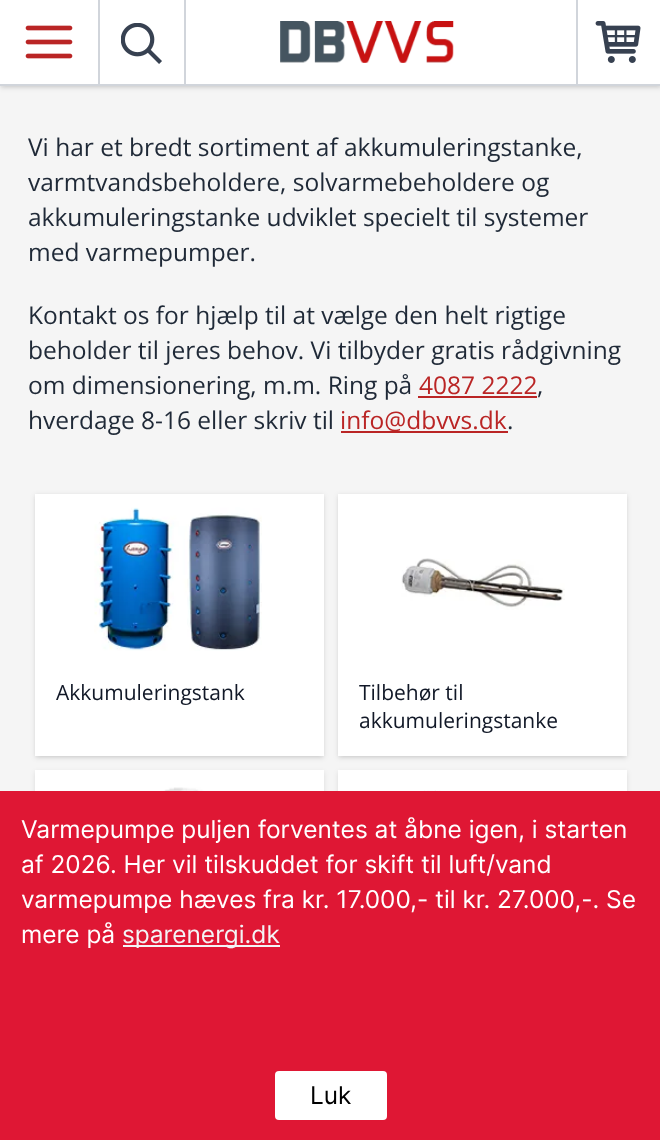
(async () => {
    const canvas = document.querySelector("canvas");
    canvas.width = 660;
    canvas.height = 1140;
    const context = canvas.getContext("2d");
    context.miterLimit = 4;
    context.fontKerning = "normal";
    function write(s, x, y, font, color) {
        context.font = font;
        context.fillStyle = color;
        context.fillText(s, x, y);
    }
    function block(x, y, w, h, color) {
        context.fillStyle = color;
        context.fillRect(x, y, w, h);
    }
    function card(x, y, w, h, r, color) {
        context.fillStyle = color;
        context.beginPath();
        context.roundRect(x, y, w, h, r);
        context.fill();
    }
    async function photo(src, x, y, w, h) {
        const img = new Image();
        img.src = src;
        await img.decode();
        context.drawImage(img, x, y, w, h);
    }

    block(0, 0, 660, 1140, "rgb(245, 245, 245)");
    context.fillStyle = "rgba(0, 0, 0, 0.1)";
    context.filter = "blur(2px)";
    context.beginPath();
    context.rect(2, 4, 658, 82);
    context.fill();
    context.filter = "none";
    context.filter = "blur(2.5px)";
    context.beginPath();
    context.rect(0, 2, 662, 86);
    context.fill();
    context.filter = "none";
    block(0, 0, 660, 84, "rgb(255, 255, 255)");
    block(0, 84, 660, 2, "rgb(209, 213, 219)");
    block(98, 0, 2, 84, "rgb(209, 213, 219)");
    await photo("media/1.png", 25, 25, 48, 34);
    block(184, 0, 2, 84, "rgb(209, 213, 219)");
    await photo("media/2.png", 121, 23, 41, 41);
    await photo("media/3.png", 280, 21, 174, 42);
    block(576, 0, 2, 84, "rgb(209, 213, 219)");
    await photo("media/4.png", 595, 21, 46, 42);
    write("Vi har et bredt sortiment af akkumuleringstanke,", 28, 156, "24.5px Open Sans", "rgb(31, 41, 55)");
    write("varmtvandsbeholdere, solvarmebeholdere og", 28, 191, "24.5px Open Sans", "rgb(31, 41, 55)");
    write("akkumuleringstanke udviklet specielt til systemer", 28, 226, "24.5px Open Sans", "rgb(31, 41, 55)");
    write("med varmepumper.", 28, 261, "24.5px Open Sans", "rgb(31, 41, 55)");
    write("Kontakt os for hjælp til at vælge den helt rigtige", 28, 324, "24.5px Open Sans", "rgb(31, 41, 55)");
    write("beholder til jeres behov. Vi tilbyder gratis rådgivning", 28, 359, "24.5px Open Sans", "rgb(31, 41, 55)");
    write("om dimensionering, m.m. Ring på", 28, 394, "24.5px Open Sans", "rgb(31, 41, 55)");
    write("4087 2222", 419, 394, "24.5px Open Sans", "rgb(186, 37, 37)");
    block(418, 396, 119, 2, "rgb(186, 37, 37)");
    write(",", 537, 394, "24.5px Open Sans", "rgb(31, 41, 55)");
    write("hverdage 8-16 eller skriv til", 28, 429, "24.5px Open Sans", "rgb(31, 41, 55)");
    block(341, 431, 167, 2, "rgb(186, 37, 37)");
    write("info@dbvvs.dk", 340, 429, "24.5px Open Sans", "rgb(186, 37, 37)");
    write(".", 507, 429, "24.5px Open Sans", "rgb(31, 41, 55)");
    context.fillStyle = "rgba(0, 0, 0, 0.1)";
    context.filter = "blur(2px)";
    context.beginPath();
    context.rect(37, 497, 285, 259);
    context.fill();
    context.filter = "none";
    context.filter = "blur(2.5px)";
    context.beginPath();
    context.rect(35, 495, 289, 263);
    context.fill();
    context.filter = "none";
    block(35, 494, 289, 262, "rgb(255, 255, 255)");
    await photo("media/5.png", 94, 507, 168, 144);
    write("Akkumuleringstank", 56, 700, "21px Open Sans", "rgb(17, 24, 39)");
    context.fillStyle = "rgba(0, 0, 0, 0.1)";
    context.filter = "blur(2px)";
    context.beginPath();
    context.rect(340, 497, 285, 259);
    context.fill();
    context.filter = "none";
    context.filter = "blur(2.5px)";
    context.beginPath();
    context.rect(338, 495, 289, 263);
    context.fill();
    context.filter = "none";
    block(338, 494, 289, 262, "rgb(255, 255, 255)");
    await photo("media/6.png", 401, 558, 164, 52);
    write("Tilbehør til", 359, 700, "21px Open Sans", "rgb(17, 24, 39)");
    write("akkumuleringstanke", 359, 728, "21px Open Sans", "rgb(17, 24, 39)");
    context.fillStyle = "rgba(0, 0, 0, 0.1)";
    context.filter = "blur(2.5px)";
    context.beginPath();
    context.rect(35, 772, 289, 262);
    context.fill();
    context.filter = "none";
    block(35, 770, 289, 21, "rgb(255, 255, 255)");
    await photo("media/7.png", 156, 787, 54, 4);
    context.fillStyle = "rgba(0, 0, 0, 0.1)";
    context.filter = "blur(2.5px)";
    context.beginPath();
    context.rect(338, 772, 289, 262);
    context.fill();
    context.filter = "none";
    block(338, 770, 289, 21, "rgb(255, 255, 255)");
    await photo("media/8.png", 380, 790, 194, 1);
    block(0, 791, 660, 349, "rgb(223, 23, 52)");
    write("Varmepumpe puljen forventes at åbne igen, i starten", 21, 838, "24.5px Inter", "rgb(255, 255, 255)");
    write("af 2026. Her vil tilskuddet for skift til luft/vand", 21, 873, "24.5px Inter", "rgb(255, 255, 255)");
    write("varmepumpe hæves fra kr. 17.000,- til kr. 27.000,-. Se", 21, 908, "24.5px Inter", "rgb(255, 255, 255)");
    write("mere på", 21, 943, "24.5px Inter", "rgb(255, 255, 255)");
    block(123, 945, 157, 2, "rgb(243, 244, 246)");
    write("sparenergi.dk", 122, 943, "24.5px Inter", "rgb(243, 244, 246)");
    card(275, 1071, 112, 49, 4, "rgb(255, 255, 255)");
    write("Luk", 310, 1104, "24.5px Inter", "rgb(0, 0, 0)");
})();
